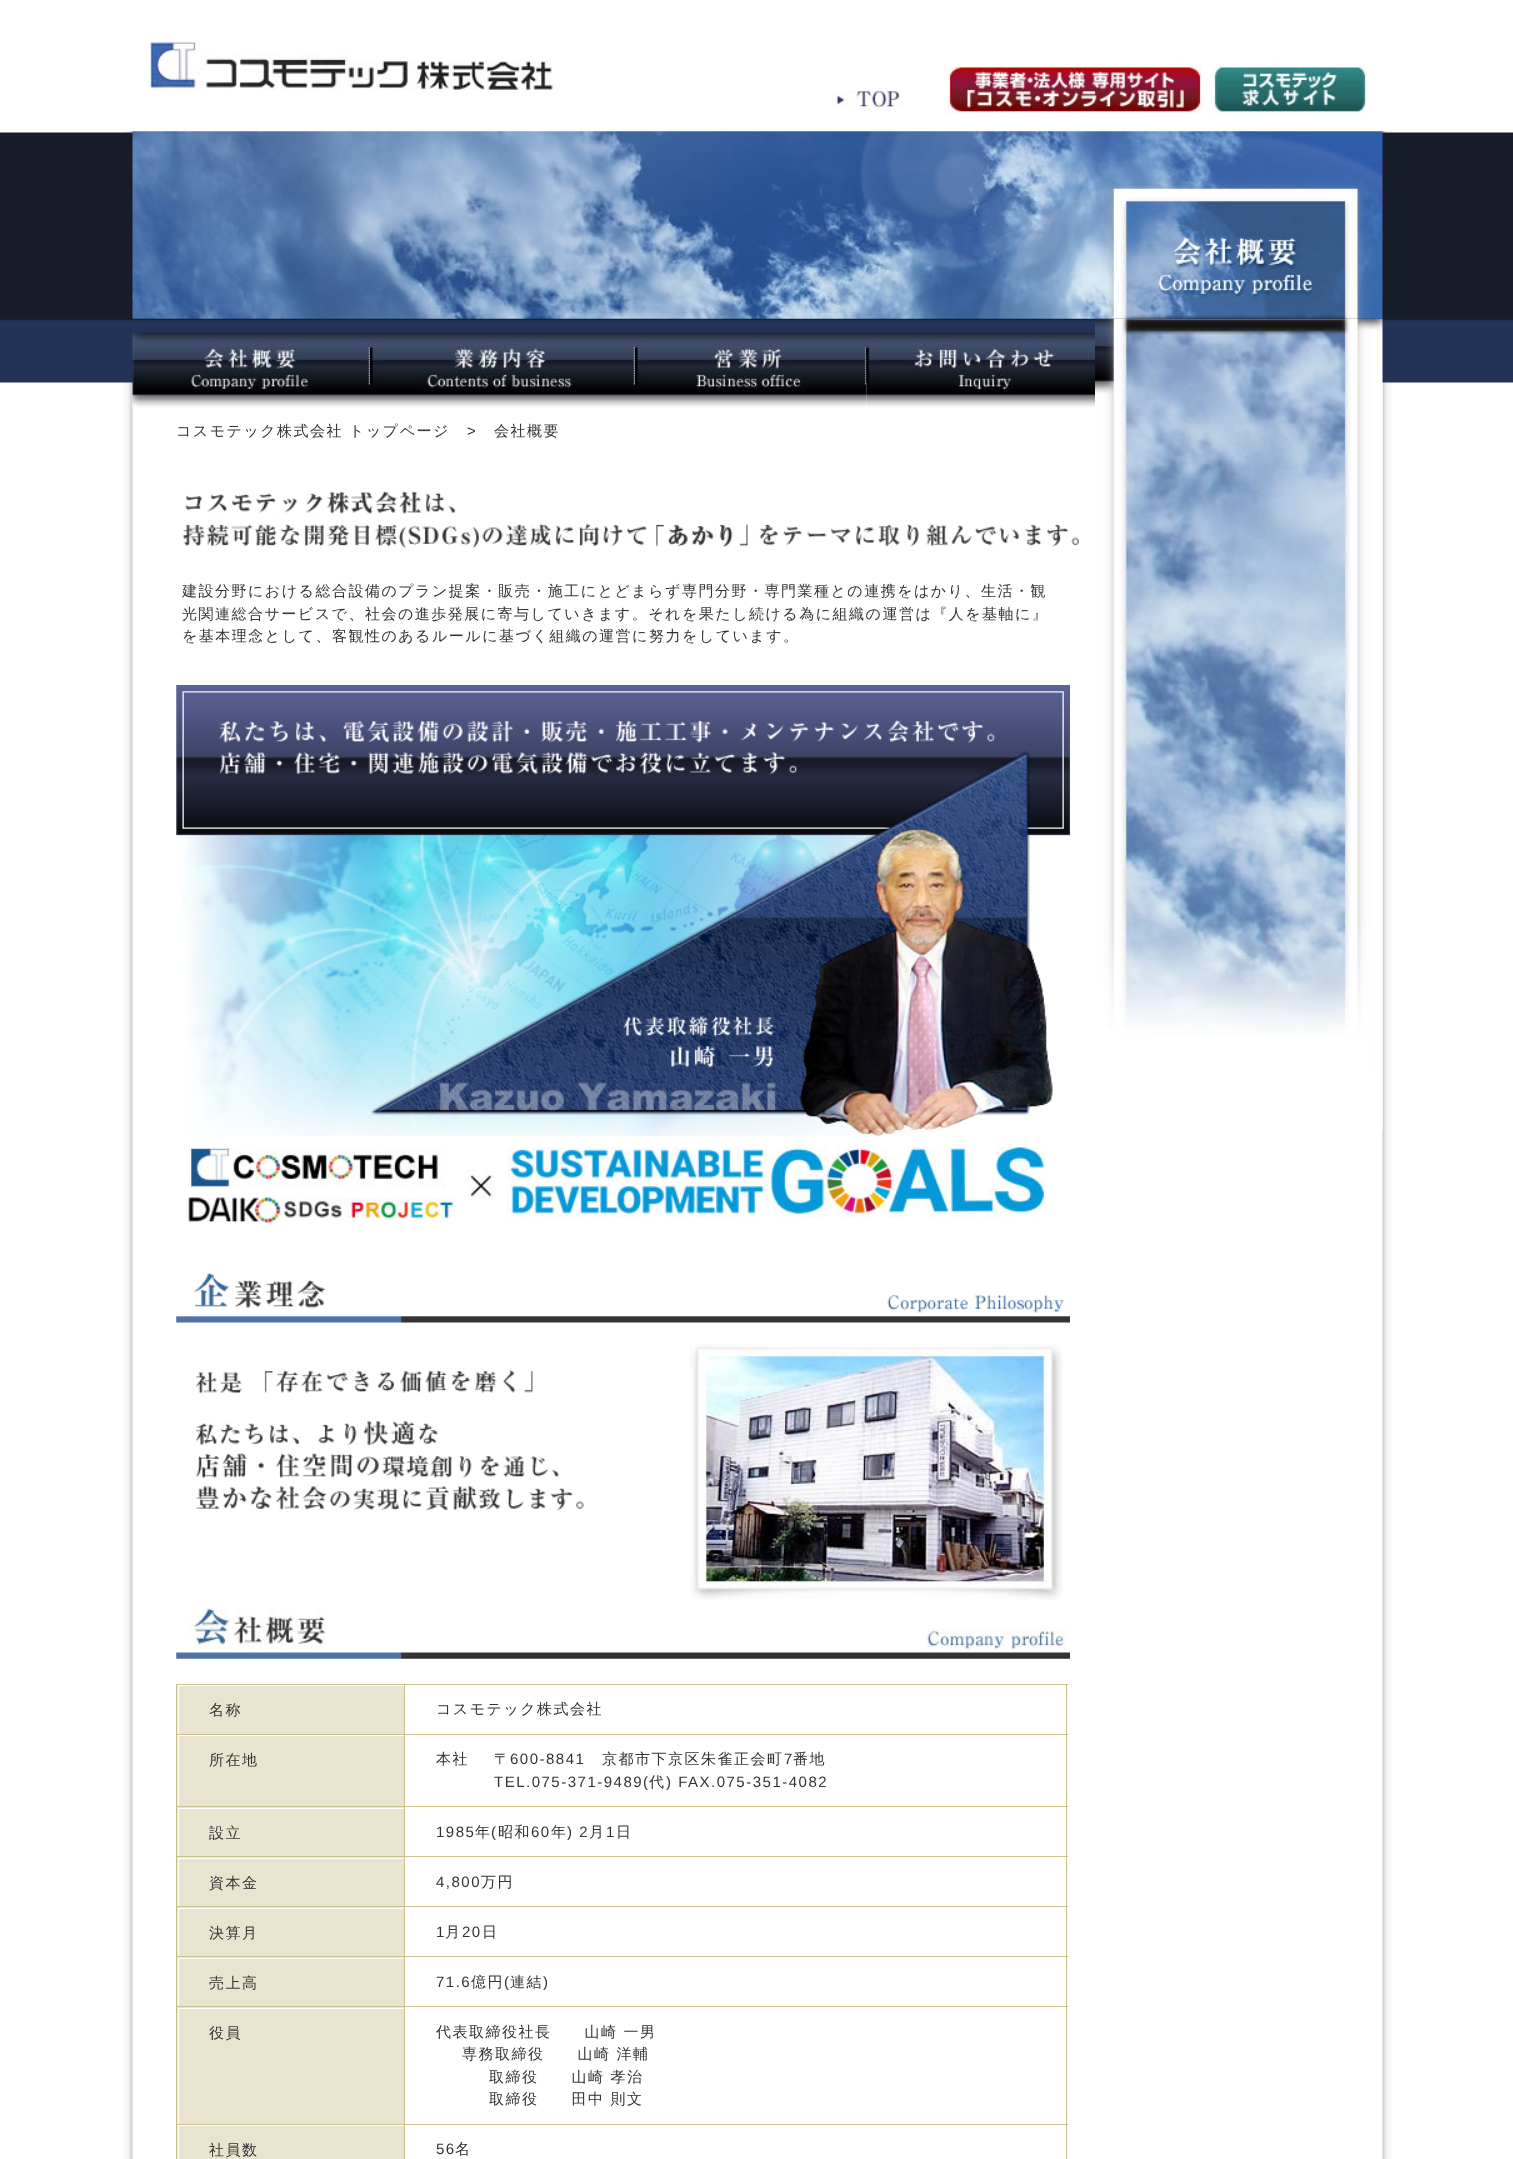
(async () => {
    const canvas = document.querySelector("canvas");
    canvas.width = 1513;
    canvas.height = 2159;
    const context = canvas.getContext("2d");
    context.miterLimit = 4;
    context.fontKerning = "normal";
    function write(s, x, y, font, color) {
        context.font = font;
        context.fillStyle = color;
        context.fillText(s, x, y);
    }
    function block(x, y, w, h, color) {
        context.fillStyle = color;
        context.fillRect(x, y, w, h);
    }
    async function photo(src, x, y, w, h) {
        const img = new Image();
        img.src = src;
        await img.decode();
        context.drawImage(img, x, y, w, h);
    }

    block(0, 0, 1513, 2159, "rgb(255, 255, 255)");
    await photo("media/1.png", 123, 131, 1269, 2028);
    await photo("media/2.png", 0, 132, 1513, 251);
    await photo("media/3.png", 150, 41, 403, 49);
    await photo("media/4.png", 832, 90, 71, 20);
    await photo("media/5.png", 946, 66, 257, 49);
    await photo("media/6.png", 1212, 66, 156, 49);
    await photo("media/8.png", 1095, 318, 288, 813);
    await photo("media/7.png", 132, 131, 1251, 188);
    await photo("media/9.png", 132, 332, 238, 76);
    await photo("media/10.png", 370, 332, 265, 76);
    await photo("media/11.png", 635, 332, 232, 76);
    await photo("media/12.png", 866, 332, 229, 76);
    context.letterSpacing = "1.5px";
    write("コスモテック株式会社 トップページ", 176, 436, "500 15px WenQuanYi Zen Hei", "rgb(51, 51, 51)");
    write(">", 467, 436, "15px Liberation Sans", "rgb(51, 51, 51)");
    write("会社概要", 494, 436, "500 15px WenQuanYi Zen Hei", "rgb(51, 51, 51)");
    await photo("media/13.png", 182, 491, 897, 57);
    write("建設分野における総合設備のプラン提案・販売・施工にとどまらず専門分野・専門業種との連携をはかり、生活・観", 182, 596, "500 15px WenQuanYi Zen Hei", "rgb(51, 51, 51)");
    write("光関連総合サービスで、社会の進歩発展に寄与していきます。それを果たし続ける為に組織の運営は『人を基軸に』", 182, 619, "500 15px WenQuanYi Zen Hei", "rgb(51, 51, 51)");
    write("を基本理念として、客観性のあるルールに基づく組織の運営に努力をしています。", 182, 641, "500 15px WenQuanYi Zen Hei", "rgb(51, 51, 51)");
    await photo("media/14.png", 176, 685, 894, 452);
    await photo("media/15.png", 186, 1147, 861, 76);
    await photo("media/16.png", 176, 1272, 894, 51);
    await photo("media/17.png", 196, 1370, 388, 141);
    await photo("media/18.png", 690, 1344, 373, 256);
    await photo("media/19.png", 176, 1608, 894, 51);
    block(177, 1685, 227, 49, "rgb(233, 228, 207)");
    block(404, 1684, 664, 1, "rgb(202, 192, 141)");
    block(404, 1734, 664, 1, "rgb(202, 192, 141)");
    block(177, 1735, 227, 389, "rgb(233, 228, 207)");
    block(404, 1806, 664, 1, "rgb(202, 192, 141)");
    block(404, 1856, 664, 1, "rgb(202, 192, 141)");
    block(404, 1906, 664, 1, "rgb(202, 192, 141)");
    block(404, 1956, 664, 1, "rgb(202, 192, 141)");
    block(404, 2006, 664, 1, "rgb(202, 192, 141)");
    block(404, 2124, 664, 1, "rgb(202, 192, 141)");
    block(404, 2124, 1, 35, "rgb(202, 192, 141)");
    block(176, 2124, 229, 1, "rgb(202, 192, 141)");
    block(404, 2006, 1, 119, "rgb(202, 192, 141)");
    block(176, 2006, 229, 1, "rgb(202, 192, 141)");
    block(404, 1956, 1, 52, "rgb(202, 192, 141)");
    block(176, 1956, 229, 1, "rgb(202, 192, 141)");
    block(404, 1906, 1, 52, "rgb(202, 192, 141)");
    block(176, 1906, 229, 1, "rgb(202, 192, 141)");
    block(404, 1856, 1, 52, "rgb(202, 192, 141)");
    block(176, 1856, 229, 1, "rgb(202, 192, 141)");
    block(404, 1806, 1, 52, "rgb(202, 192, 141)");
    block(176, 1806, 229, 1, "rgb(202, 192, 141)");
    block(404, 1734, 1, 74, "rgb(202, 192, 141)");
    block(176, 1734, 229, 1, "rgb(202, 192, 141)");
    block(404, 1684, 1, 51, "rgb(202, 192, 141)");
    block(176, 1684, 229, 1, "rgb(202, 192, 141)");
    block(176, 2124, 1, 35, "rgb(202, 192, 141)");
    block(176, 2006, 1, 119, "rgb(202, 192, 141)");
    block(176, 1956, 1, 52, "rgb(202, 192, 141)");
    block(176, 1906, 1, 52, "rgb(202, 192, 141)");
    block(176, 1856, 1, 52, "rgb(202, 192, 141)");
    block(176, 1806, 1, 52, "rgb(202, 192, 141)");
    block(176, 1734, 1, 74, "rgb(202, 192, 141)");
    block(176, 1684, 1, 51, "rgb(202, 192, 141)");
    block(178, 1685, 226, 1, "rgb(255, 255, 255)");
    block(178, 1685, 1, 49, "rgb(255, 255, 255)");
    write("名称", 209, 1715, "500 15px WenQuanYi Zen Hei", "rgb(51, 51, 51)");
    block(1066, 2124, 1, 35, "rgb(202, 192, 141)");
    block(1066, 2006, 1, 119, "rgb(202, 192, 141)");
    block(1066, 1956, 1, 52, "rgb(202, 192, 141)");
    block(1066, 1906, 1, 52, "rgb(202, 192, 141)");
    block(1066, 1856, 1, 52, "rgb(202, 192, 141)");
    block(1066, 1806, 1, 52, "rgb(202, 192, 141)");
    block(1066, 1734, 1, 74, "rgb(202, 192, 141)");
    block(1066, 1684, 1, 51, "rgb(202, 192, 141)");
    write("コスモテック株式会社", 436, 1714, "500 15px WenQuanYi Zen Hei", "rgb(51, 51, 51)");
    block(178, 1735, 226, 1, "rgb(255, 255, 255)");
    block(178, 1735, 1, 71, "rgb(255, 255, 255)");
    write("所在地", 209, 1765, "500 15px WenQuanYi Zen Hei", "rgb(51, 51, 51)");
    write("本社", 436, 1764, "500 15px WenQuanYi Zen Hei", "rgb(51, 51, 51)");
    write("〒", 494, 1764, "500 15px WenQuanYi Zen Hei", "rgb(51, 51, 51)");
    write("600-8841", 510, 1764, "15px Liberation Sans", "rgb(51, 51, 51)");
    write("京都市下京区朱雀正会町", 602, 1764, "500 15px WenQuanYi Zen Hei", "rgb(51, 51, 51)");
    write("7", 784, 1764, "15px Liberation Sans", "rgb(51, 51, 51)");
    write("番地", 793, 1764, "500 15px WenQuanYi Zen Hei", "rgb(51, 51, 51)");
    write("TEL.075-371-9489(", 494, 1787, "15px Liberation Sans", "rgb(51, 51, 51)");
    write("代", 649, 1787, "500 15px WenQuanYi Zen Hei", "rgb(51, 51, 51)");
    write(") FAX.075-351-4082", 666, 1787, "15px Liberation Sans", "rgb(51, 51, 51)");
    block(178, 1808, 226, 1, "rgb(255, 255, 255)");
    block(178, 1808, 1, 48, "rgb(255, 255, 255)");
    write("設立", 209, 1838, "500 15px WenQuanYi Zen Hei", "rgb(51, 51, 51)");
    write("1985", 436, 1837, "15px Liberation Sans", "rgb(51, 51, 51)");
    write("年", 475, 1837, "500 15px WenQuanYi Zen Hei", "rgb(51, 51, 51)");
    write("(", 491, 1837, "15px Liberation Sans", "rgb(51, 51, 51)");
    write("昭和", 498, 1837, "500 15px WenQuanYi Zen Hei", "rgb(51, 51, 51)");
    write("60", 531, 1837, "15px Liberation Sans", "rgb(51, 51, 51)");
    write("年", 551, 1837, "500 15px WenQuanYi Zen Hei", "rgb(51, 51, 51)");
    write(") 2", 567, 1837, "15px Liberation Sans", "rgb(51, 51, 51)");
    write("月", 589, 1837, "500 15px WenQuanYi Zen Hei", "rgb(51, 51, 51)");
    write("1", 606, 1837, "15px Liberation Sans", "rgb(51, 51, 51)");
    write("日", 616, 1837, "500 15px WenQuanYi Zen Hei", "rgb(51, 51, 51)");
    block(178, 1858, 226, 1, "rgb(255, 255, 255)");
    block(178, 1858, 1, 48, "rgb(255, 255, 255)");
    write("資本金", 209, 1888, "500 15px WenQuanYi Zen Hei", "rgb(51, 51, 51)");
    write("4,800", 436, 1887, "15px Liberation Sans", "rgb(51, 51, 51)");
    write("万円", 481, 1887, "500 15px WenQuanYi Zen Hei", "rgb(51, 51, 51)");
    block(178, 1908, 226, 1, "rgb(255, 255, 255)");
    block(178, 1908, 1, 48, "rgb(255, 255, 255)");
    write("決算月", 209, 1938, "500 15px WenQuanYi Zen Hei", "rgb(51, 51, 51)");
    write("1", 436, 1937, "15px Liberation Sans", "rgb(51, 51, 51)");
    write("月", 445, 1937, "500 15px WenQuanYi Zen Hei", "rgb(51, 51, 51)");
    write("20", 462, 1937, "15px Liberation Sans", "rgb(51, 51, 51)");
    write("日", 482, 1937, "500 15px WenQuanYi Zen Hei", "rgb(51, 51, 51)");
    block(178, 1958, 226, 1, "rgb(255, 255, 255)");
    block(178, 1958, 1, 48, "rgb(255, 255, 255)");
    write("売上高", 209, 1988, "500 15px WenQuanYi Zen Hei", "rgb(51, 51, 51)");
    write("71.6", 436, 1987, "15px Liberation Sans", "rgb(51, 51, 51)");
    write("億円", 471, 1987, "500 15px WenQuanYi Zen Hei", "rgb(51, 51, 51)");
    write("(", 504, 1987, "15px Liberation Sans", "rgb(51, 51, 51)");
    write("連結", 510, 1987, "500 15px WenQuanYi Zen Hei", "rgb(51, 51, 51)");
    write(")", 543, 1987, "15px Liberation Sans", "rgb(51, 51, 51)");
    block(178, 2008, 226, 1, "rgb(255, 255, 255)");
    block(178, 2008, 1, 116, "rgb(255, 255, 255)");
    write("役員", 209, 2038, "500 15px WenQuanYi Zen Hei", "rgb(51, 51, 51)");
    write("代表取締役社長　　山崎 一男", 436, 2037, "500 15px WenQuanYi Zen Hei", "rgb(51, 51, 51)");
    write("専務取締役　　山崎 洋輔", 462, 2059, "500 15px WenQuanYi Zen Hei", "rgb(51, 51, 51)");
    write("取締役　　山崎 孝治", 489, 2082, "500 15px WenQuanYi Zen Hei", "rgb(51, 51, 51)");
    write("取締役　　田中 則文", 489, 2104, "500 15px WenQuanYi Zen Hei", "rgb(51, 51, 51)");
    block(177, 2125, 227, 34, "rgb(233, 228, 207)");
    block(178, 2125, 226, 1, "rgb(255, 255, 255)");
    block(178, 2125, 1, 34, "rgb(255, 255, 255)");
    write("社員数", 209, 2155, "500 15px WenQuanYi Zen Hei", "rgb(51, 51, 51)");
    write("56", 436, 2154, "15px Liberation Sans", "rgb(51, 51, 51)");
    write("名", 455, 2154, "500 15px WenQuanYi Zen Hei", "rgb(51, 51, 51)");
})();
